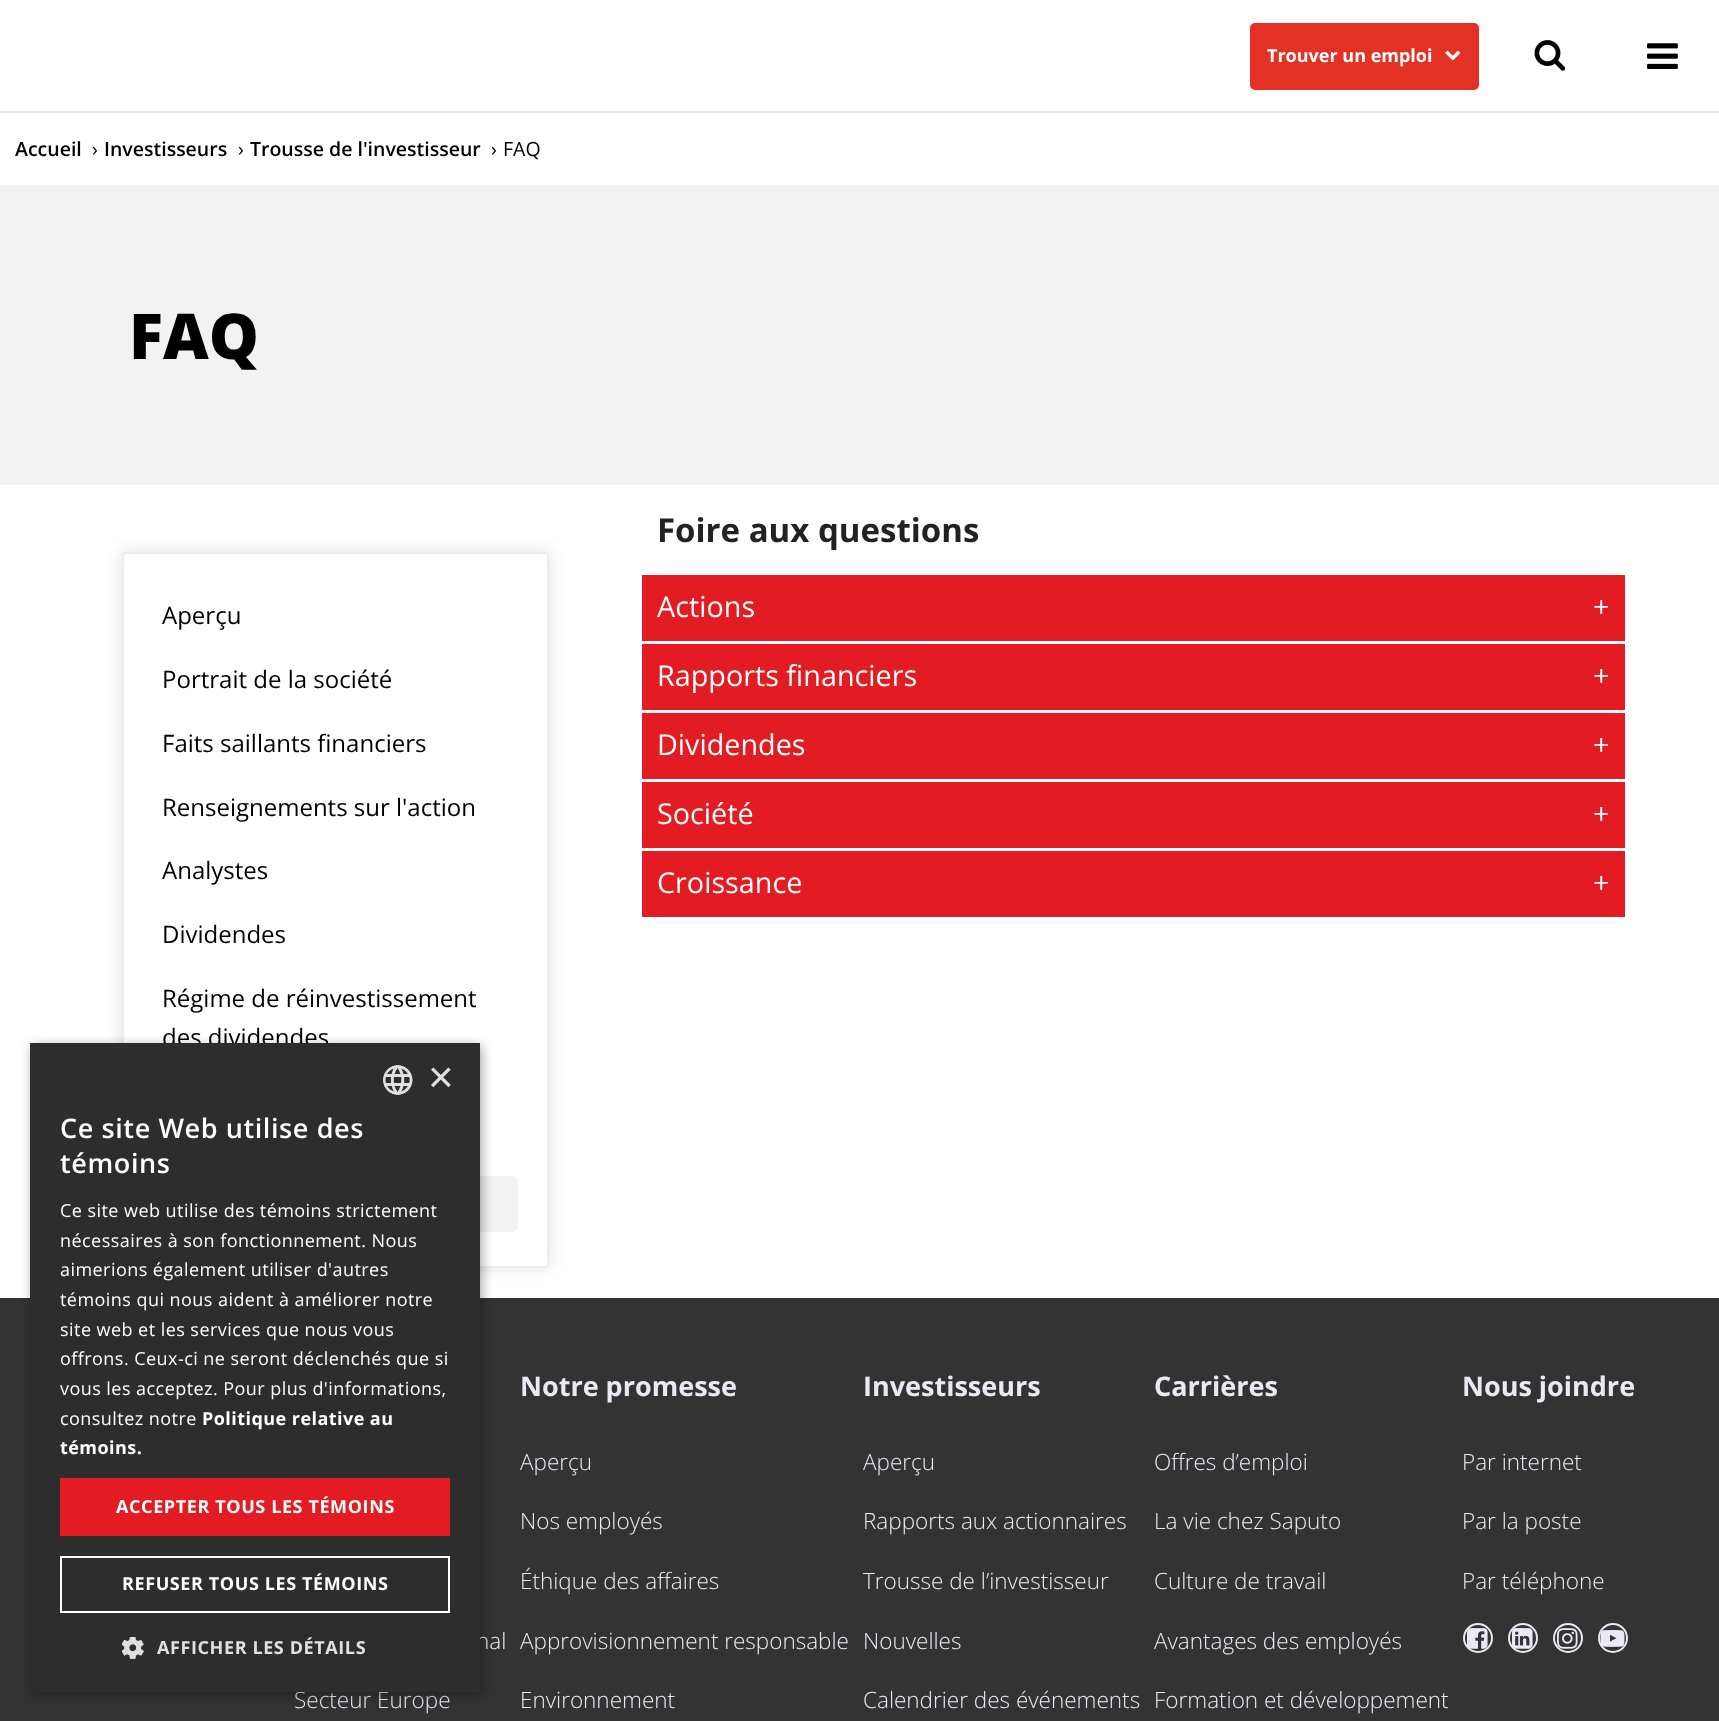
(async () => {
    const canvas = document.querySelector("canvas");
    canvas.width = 1719;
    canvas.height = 1721;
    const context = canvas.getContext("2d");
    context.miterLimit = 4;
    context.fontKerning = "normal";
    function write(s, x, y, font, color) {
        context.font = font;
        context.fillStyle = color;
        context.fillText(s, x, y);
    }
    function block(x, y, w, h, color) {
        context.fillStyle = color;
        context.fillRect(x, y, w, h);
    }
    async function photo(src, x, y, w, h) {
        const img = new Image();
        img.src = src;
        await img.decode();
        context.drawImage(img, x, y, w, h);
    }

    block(0, 0, 1719, 1721, "rgb(255, 255, 255)");
    block(0, 111, 1719, 2, "rgb(230, 230, 230)");
    context.fillStyle = "rgb(227, 50, 37)";
    context.beginPath();
    context.roundRect(1251.5, 24.5, 226, 64, 3.5);
    context.fill();
    context.strokeStyle = "rgb(227, 50, 37)";
    context.lineWidth = 3;
    context.stroke();
    write("Trouver un emploi", 1267, 62, "bold 18px Open Sans", "rgb(255, 255, 255)");
    await photo("media/1.png", 1445, 50, 16, 11);
    await photo("media/2.png", 1534, 40, 32, 31);
    await photo("media/3.png", 1647, 43, 31, 26);
    write("Accueil", 15, 156, "600 19.5px Open Sans", "rgb(0, 0, 0)");
    write("›", 92, 156, "19.5px Open Sans", "rgb(0, 0, 0)");
    write("Investisseurs", 104, 156, "600 19.5px Open Sans", "rgb(0, 0, 0)");
    write("›", 238, 156, "19.5px Open Sans", "rgb(0, 0, 0)");
    write("Trousse de l'investisseur", 250, 156, "600 19.5px Open Sans", "rgb(0, 0, 0)");
    write("›", 491, 156, "19.5px Open Sans", "rgb(0, 0, 0)");
    write("FAQ", 503, 156, "19.5px Open Sans", "rgb(0, 0, 0)");
    block(0, 185, 1719, 300, "rgb(242, 242, 242)");
    write("FAQ", 129, 359, "800 63px Open Sans", "rgb(0, 0, 0)");
    context.fillStyle = "rgba(0, 0, 0, 0.1)";
    context.filter = "blur(7.5px)";
    context.beginPath();
    context.roundRect(120, 551, 431, 718, 5);
    context.fill();
    context.filter = "none";
    context.fillStyle = "rgb(255, 255, 255)";
    context.beginPath();
    context.roundRect(123, 553, 425, 714, 2);
    context.fill();
    context.strokeStyle = "rgb(237, 237, 237)";
    context.lineWidth = 2;
    context.stroke();
    write("Aperçu", 162, 624, "24px Open Sans", "rgb(0, 0, 0)");
    write("Portrait de la société", 162, 688, "24px Open Sans", "rgb(0, 0, 0)");
    write("Faits saillants financiers", 162, 752, "24px Open Sans", "rgb(0, 0, 0)");
    write("Renseignements sur l'action", 162, 816, "24px Open Sans", "rgb(0, 0, 0)");
    write("Analystes", 162, 879, "24px Open Sans", "rgb(0, 0, 0)");
    write("Dividendes", 162, 943, "24px Open Sans", "rgb(0, 0, 0)");
    write("Régime de réinvestissement", 162, 1007, "24px Open Sans", "rgb(0, 0, 0)");
    write("des dividendes", 162, 1046, "24px Open Sans", "rgb(0, 0, 0)");
    context.fillStyle = "rgb(242, 242, 242)";
    context.beginPath();
    context.roundRect(154, 1177, 363, 54, 4);
    context.fill();
    context.strokeStyle = "rgb(242, 242, 242)";
    context.stroke();
    write("Foire aux questions", 657, 542, "bold 33px Open Sans", "rgb(34, 34, 34)");
    block(642, 575, 983, 66, "rgb(227, 28, 35)");
    write("Actions", 657, 617, "28.75px Open Sans", "rgb(255, 255, 255)");
    write("+", 1593, 617, "28.75px Open Sans", "rgb(255, 255, 255)");
    block(642, 644, 983, 66, "rgb(227, 28, 35)");
    write("Rapports financiers", 657, 686, "28.75px Open Sans", "rgb(255, 255, 255)");
    write("+", 1593, 686, "28.75px Open Sans", "rgb(255, 255, 255)");
    block(642, 713, 983, 66, "rgb(227, 28, 35)");
    write("Dividendes", 657, 755, "28.75px Open Sans", "rgb(255, 255, 255)");
    write("+", 1593, 755, "28.75px Open Sans", "rgb(255, 255, 255)");
    block(642, 782, 983, 66, "rgb(227, 28, 35)");
    write("Société", 657, 824, "28.75px Open Sans", "rgb(255, 255, 255)");
    write("+", 1593, 824, "28.75px Open Sans", "rgb(255, 255, 255)");
    block(642, 851, 983, 66, "rgb(227, 28, 35)");
    write("Croissance", 657, 893, "28.75px Open Sans", "rgb(255, 255, 255)");
    write("+", 1593, 893, "28.75px Open Sans", "rgb(255, 255, 255)");
    block(0, 1298, 1719, 423, "rgb(51, 51, 51)");
    write("nal", 476, 1649, "300 22.5px Open Sans", "rgb(232, 235, 244)");
    write("Secteur Europe", 294, 1708, "300 22.5px Open Sans", "rgb(232, 235, 244)");
    write("Notre promesse", 520, 1396, "bold 27px Open Sans", "rgb(232, 235, 244)");
    write("Aperçu", 520, 1470, "300 22.5px Open Sans", "rgb(232, 235, 244)");
    write("Nos employés", 520, 1529, "300 22.5px Open Sans", "rgb(232, 235, 244)");
    write("Éthique des affaires", 520, 1589, "300 22.5px Open Sans", "rgb(232, 235, 244)");
    write("Approvisionnement responsable", 520, 1649, "300 22.5px Open Sans", "rgb(232, 235, 244)");
    write("Environnement", 520, 1708, "300 22.5px Open Sans", "rgb(232, 235, 244)");
    write("Investisseurs", 863, 1396, "bold 27px Open Sans", "rgb(232, 235, 244)");
    write("Aperçu", 863, 1470, "300 22.5px Open Sans", "rgb(232, 235, 244)");
    write("Rapports aux actionnaires", 863, 1529, "300 22.5px Open Sans", "rgb(232, 235, 244)");
    write("Trousse de l’investisseur", 863, 1589, "300 22.5px Open Sans", "rgb(232, 235, 244)");
    write("Nouvelles", 863, 1649, "300 22.5px Open Sans", "rgb(232, 235, 244)");
    write("Calendrier des événements", 863, 1708, "300 22.5px Open Sans", "rgb(232, 235, 244)");
    write("Carrières", 1154, 1396, "bold 27px Open Sans", "rgb(232, 235, 244)");
    write("Offres d’emploi", 1154, 1470, "300 22.5px Open Sans", "rgb(232, 235, 244)");
    write("La vie chez Saputo", 1154, 1529, "300 22.5px Open Sans", "rgb(232, 235, 244)");
    write("Culture de travail", 1154, 1589, "300 22.5px Open Sans", "rgb(232, 235, 244)");
    write("Avantages des employés", 1154, 1649, "300 22.5px Open Sans", "rgb(232, 235, 244)");
    write("Formation et développement", 1154, 1708, "300 22.5px Open Sans", "rgb(232, 235, 244)");
    write("Nous joindre", 1462, 1396, "bold 27px Open Sans", "rgb(232, 235, 244)");
    write("Par internet", 1462, 1470, "300 22.5px Open Sans", "rgb(232, 235, 244)");
    write("Par la poste", 1462, 1529, "300 22.5px Open Sans", "rgb(232, 235, 244)");
    write("Par téléphone", 1462, 1589, "300 22.5px Open Sans", "rgb(232, 235, 244)");
    context.beginPath();
    context.arc(1478, 1638, 14, 0, Math.PI * 2);
    context.strokeStyle = "rgb(232, 235, 244)";
    context.stroke();
    await photo("media/4.png", 1467, 1628, 21, 21);
    context.beginPath();
    context.arc(1523, 1638, 14, 0, Math.PI * 2);
    context.stroke();
    await photo("media/5.png", 1512, 1628, 21, 21);
    context.beginPath();
    context.arc(1568, 1638, 14, 0, Math.PI * 2);
    context.stroke();
    await photo("media/6.png", 1557, 1628, 21, 21);
    context.beginPath();
    context.arc(1613, 1638, 14, 0, Math.PI * 2);
    context.stroke();
    await photo("media/7.png", 1600, 1630, 25, 17);
    context.fillStyle = "rgba(0, 0, 0, 0.35)";
    context.filter = "blur(6px)";
    context.beginPath();
    context.rect(32, 1046, 450, 649);
    context.fill();
    context.filter = "none";
    block(30, 1043, 450, 649, "rgb(45, 45, 45)");
    await photo("media/8.png", 383, 1065, 30, 30);
    write("×", 428, 1092, "44px Liberation Sans", "rgb(224, 224, 224)");
    context.letterSpacing = "0.6px";
    write("Ce site Web utilise des", 60, 1138, "600 27px Open Sans", "rgb(255, 255, 255)");
    write("témoins", 60, 1173, "600 27px Open Sans", "rgb(255, 255, 255)");
    context.letterSpacing = "0.45px";
    write("Ce site web utilise des témoins strictement", 60, 1217, "18px Open Sans", "rgb(255, 255, 255)");
    write("nécessaires à son fonctionnement. Nous", 60, 1247, "18px Open Sans", "rgb(255, 255, 255)");
    write("aimerions également utiliser d'autres", 60, 1276, "18px Open Sans", "rgb(255, 255, 255)");
    write("témoins qui nous aident à améliorer notre", 60, 1306, "18px Open Sans", "rgb(255, 255, 255)");
    write("site web et les services que nous vous", 60, 1336, "18px Open Sans", "rgb(255, 255, 255)");
    write("offrons. Ceux-ci ne seront déclenchés que si", 60, 1365, "18px Open Sans", "rgb(255, 255, 255)");
    write("vous les acceptez. Pour plus d'informations,", 60, 1395, "18px Open Sans", "rgb(255, 255, 255)");
    write("consultez notre", 60, 1425, "18px Open Sans", "rgb(255, 255, 255)");
    write("Politique relative au", 202, 1425, "bold 18px Open Sans", "rgb(255, 255, 255)");
    write("témoins.", 60, 1454, "bold 18px Open Sans", "rgb(255, 255, 255)");
    block(60, 1478, 390, 58, "rgb(227, 28, 35)");
    context.letterSpacing = "0.6px";
    write("ACCEPTER TOUS LES TÉMOINS", 116, 1513, "bold 18px Open Sans", "rgb(255, 255, 255)");
    context.strokeStyle = "rgb(255, 255, 255)";
    context.strokeRect(61, 1557, 388, 55);
    write("REFUSER TOUS LES TÉMOINS", 122, 1590, "bold 18px Open Sans", "rgb(255, 255, 255)");
    await photo("media/9.png", 122, 1637, 22, 22);
    write("AFFICHER LES DÉTAILS", 157, 1654, "bold 18px Open Sans", "rgb(224, 224, 224)");
})();
